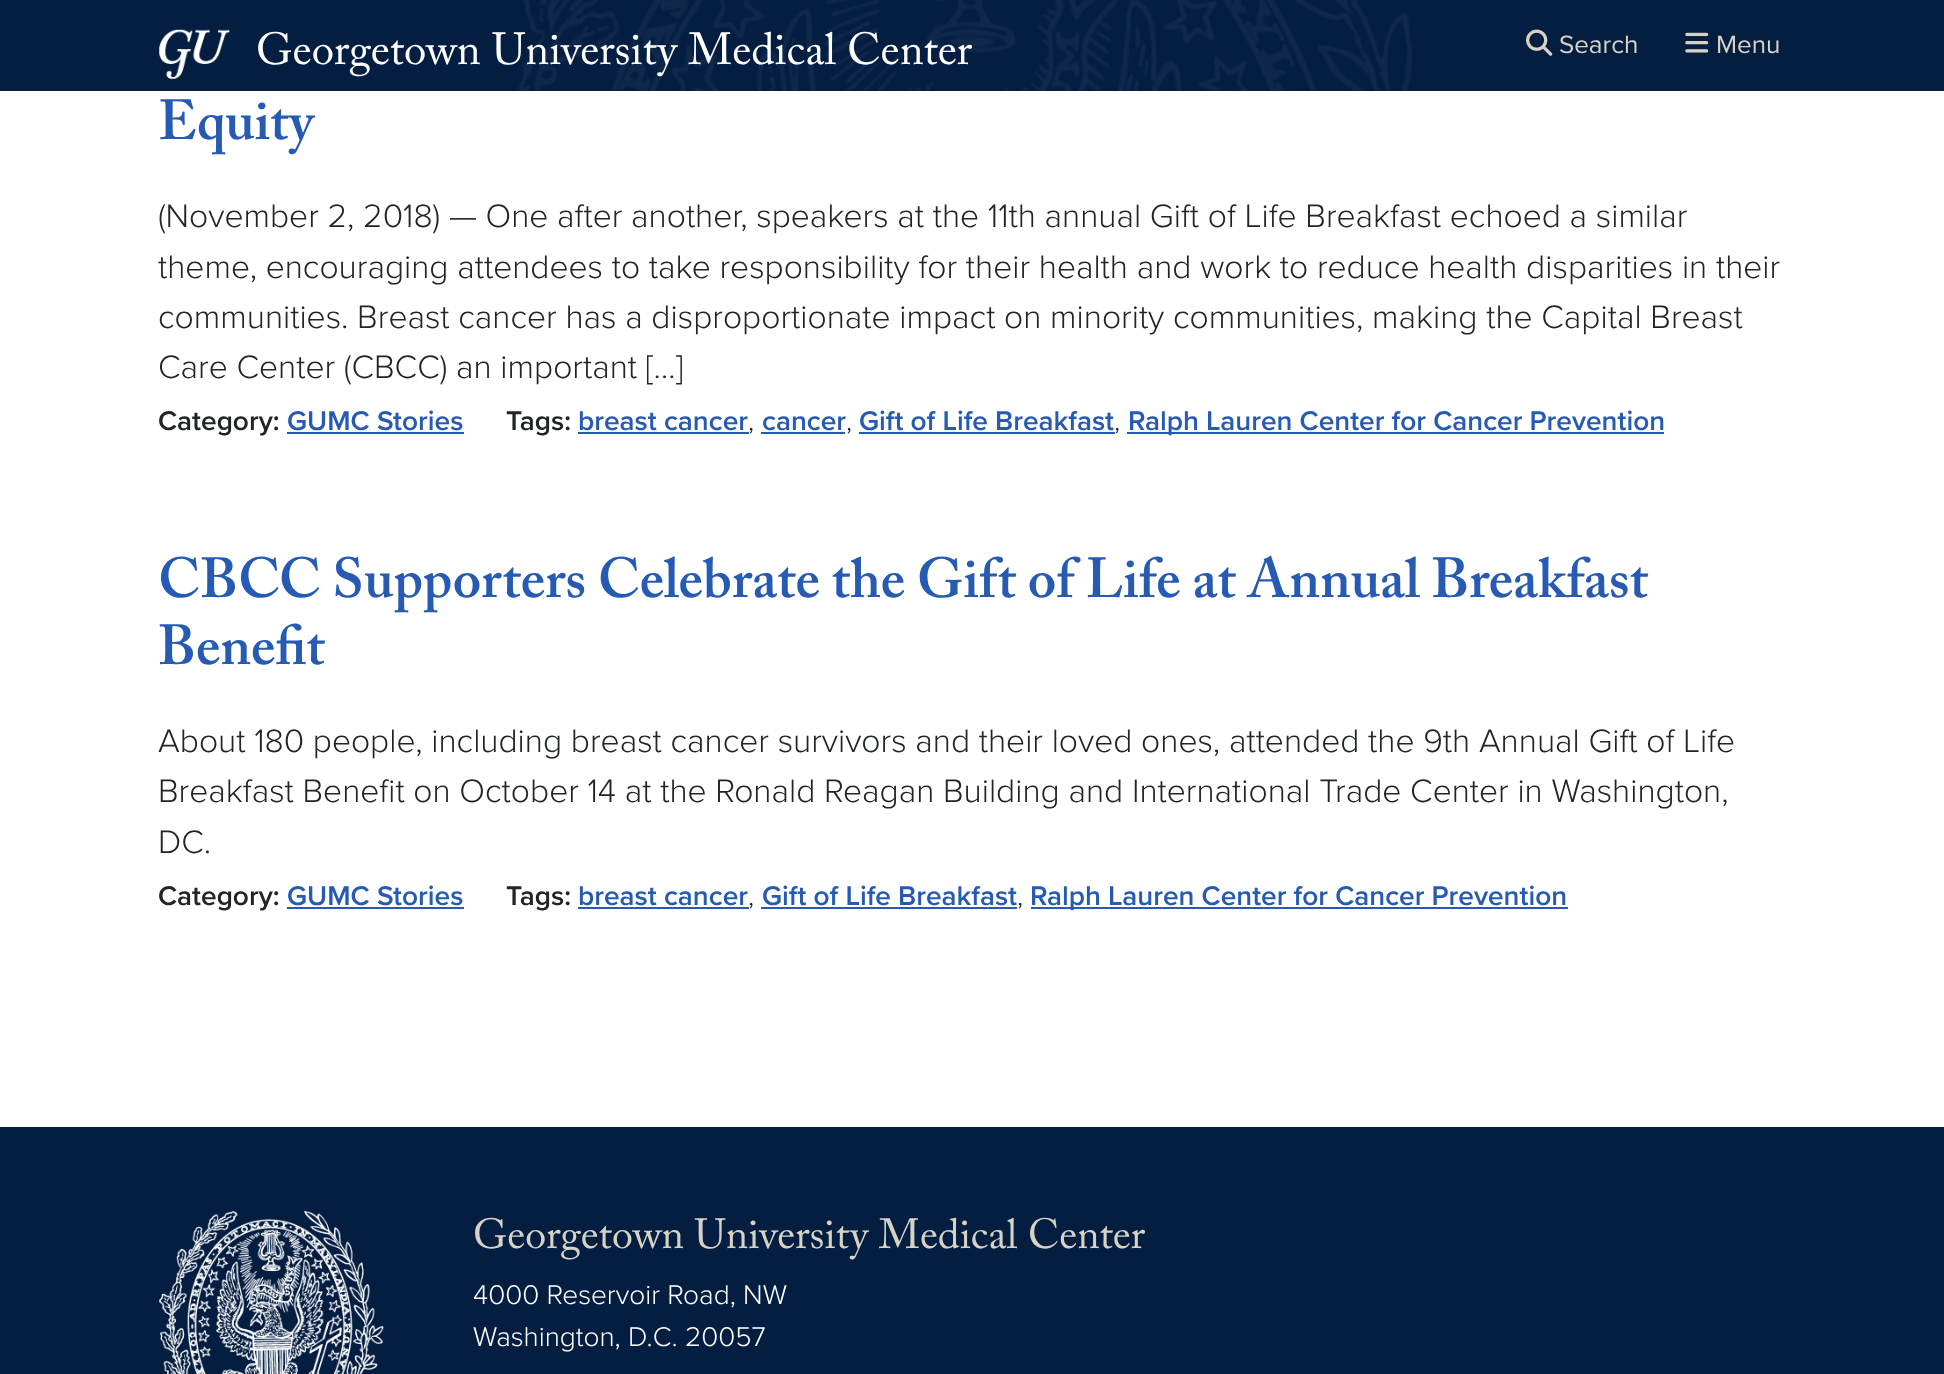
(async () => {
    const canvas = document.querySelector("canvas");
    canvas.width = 1944;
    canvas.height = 1374;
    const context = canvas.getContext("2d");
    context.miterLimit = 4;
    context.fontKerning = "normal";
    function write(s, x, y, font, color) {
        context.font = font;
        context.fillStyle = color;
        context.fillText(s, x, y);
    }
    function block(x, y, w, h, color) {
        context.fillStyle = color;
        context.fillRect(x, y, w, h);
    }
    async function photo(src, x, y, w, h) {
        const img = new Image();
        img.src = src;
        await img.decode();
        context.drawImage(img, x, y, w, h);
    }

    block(0, 0, 1944, 1374, "rgb(255, 255, 255)");
    block(0, 0, 1944, 91, "rgb(4, 30, 66)");
    await photo("media/1.png", 519, 0, 893, 91);
    await photo("media/2.png", 159, 29, 71, 50);
    write("Georgetown University Medical Center", 256, 64, "44.75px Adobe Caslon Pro", "rgb(255, 255, 255)");
    await photo("media/3.png", 1526, 29, 27, 27);
    write("Search", 1559, 53, "26px Proxima Nova", "rgb(214, 210, 196)");
    await photo("media/4.png", 1685, 32, 24, 21);
    write("Menu", 1716, 53, "26px Proxima Nova", "rgb(214, 210, 196)");
    write("Equity", 158, 139, "600 56px Adobe Caslon Pro", "rgb(38, 90, 179)");
    write("(November 2, 2018) — One after another, speakers at the 11th annual Gift of Life Breakfast echoed a similar", 158, 227, "300 33.6px Proxima Nova", "rgb(33, 37, 41)");
    write("theme, encouraging attendees to take responsibility for their health and work to reduce health disparities in their", 158, 278, "300 33.6px Proxima Nova", "rgb(33, 37, 41)");
    write("communities. Breast cancer has a disproportionate impact on minority communities, making the Capital Breast", 158, 328, "300 33.6px Proxima Nova", "rgb(33, 37, 41)");
    write("Care Center (CBCC) an important […]", 158, 378, "300 33.6px Proxima Nova", "rgb(33, 37, 41)");
    write("Category:", 158, 430, "600 28px Proxima Nova", "rgb(33, 37, 41)");
    write("GUMC Stories", 287, 430, "600 28px Proxima Nova", "rgb(38, 90, 179)");
    block(287, 432, 177, 2, "rgb(38, 90, 179)");
    write("Tags:", 506, 430, "600 28px Proxima Nova", "rgb(33, 37, 41)");
    write("breast cancer", 578, 430, "600 28px Proxima Nova", "rgb(38, 90, 179)");
    write(",", 748, 430, "300 28px Proxima Nova", "rgb(33, 37, 41)");
    block(578, 432, 171, 2, "rgb(38, 90, 179)");
    write("cancer", 762, 430, "600 28px Proxima Nova", "rgb(38, 90, 179)");
    write(",", 846, 430, "300 28px Proxima Nova", "rgb(33, 37, 41)");
    block(761, 432, 84, 2, "rgb(38, 90, 179)");
    write("Gift of Life Breakfast", 859, 430, "600 28px Proxima Nova", "rgb(38, 90, 179)");
    write(",", 1114, 430, "300 28px Proxima Nova", "rgb(33, 37, 41)");
    block(859, 432, 256, 2, "rgb(38, 90, 179)");
    block(1127, 432, 537, 2, "rgb(38, 90, 179)");
    write("Ralph Lauren Center for Cancer Prevention", 1128, 430, "600 28px Proxima Nova", "rgb(38, 90, 179)");
    write("CBCC Supporters Celebrate the Gift of Life at Annual Breakfast", 158, 597, "600 56px Adobe Caslon Pro", "rgb(38, 90, 179)");
    write("Benefit", 158, 664, "600 56px Adobe Caslon Pro", "rgb(38, 90, 179)");
    write("About 180 people, including breast cancer survivors and their loved ones, attended the 9th Annual Gift of Life", 158, 752, "300 33.6px Proxima Nova", "rgb(33, 37, 41)");
    write("Breakfast Benefit on October 14 at the Ronald Reagan Building and International Trade Center in Washington,", 158, 802, "300 33.6px Proxima Nova", "rgb(33, 37, 41)");
    write("DC.", 158, 853, "300 33.6px Proxima Nova", "rgb(33, 37, 41)");
    write("Category:", 158, 905, "600 28px Proxima Nova", "rgb(33, 37, 41)");
    write("GUMC Stories", 287, 905, "600 28px Proxima Nova", "rgb(38, 90, 179)");
    block(287, 907, 177, 2, "rgb(38, 90, 179)");
    write("Tags:", 506, 905, "600 28px Proxima Nova", "rgb(33, 37, 41)");
    write("breast cancer", 578, 905, "600 28px Proxima Nova", "rgb(38, 90, 179)");
    write(",", 748, 905, "300 28px Proxima Nova", "rgb(33, 37, 41)");
    block(578, 907, 171, 2, "rgb(38, 90, 179)");
    write("Gift of Life Breakfast", 762, 905, "600 28px Proxima Nova", "rgb(38, 90, 179)");
    write(",", 1017, 905, "300 28px Proxima Nova", "rgb(33, 37, 41)");
    block(761, 907, 256, 2, "rgb(38, 90, 179)");
    block(1031, 907, 537, 2, "rgb(38, 90, 179)");
    write("Ralph Lauren Center for Cancer Prevention", 1030, 905, "600 28px Proxima Nova", "rgb(38, 90, 179)");
    block(0, 1127, 1944, 247, "rgb(4, 30, 66)");
    await photo("media/5.png", 159, 1211, 225, 163);
    write("Georgetown University Medical Center", 473, 1248, "42px Adobe Caslon Pro", "rgb(214, 210, 196)");
    write("4000 Reservoir Road, NW", 473, 1304, "300 28px Proxima Nova", "rgb(255, 255, 255)");
    write("Washington, D.C. 20057", 473, 1346, "300 28px Proxima Nova", "rgb(255, 255, 255)");
})();
